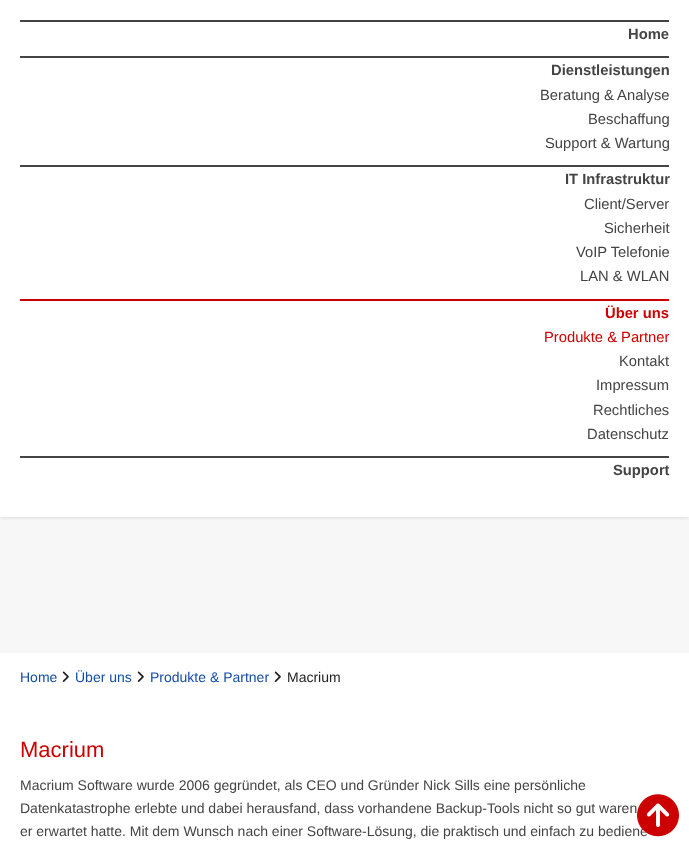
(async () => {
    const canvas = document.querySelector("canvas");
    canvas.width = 689;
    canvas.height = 842;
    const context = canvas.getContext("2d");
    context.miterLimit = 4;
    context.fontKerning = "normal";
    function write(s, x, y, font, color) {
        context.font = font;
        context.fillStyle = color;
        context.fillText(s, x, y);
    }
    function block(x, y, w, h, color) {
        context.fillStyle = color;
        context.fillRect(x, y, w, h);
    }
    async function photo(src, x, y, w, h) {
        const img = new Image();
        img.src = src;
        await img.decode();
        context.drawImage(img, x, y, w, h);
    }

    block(0, 0, 689, 842, "rgb(255, 255, 255)");
    block(0, 517, 689, 136, "rgb(247, 247, 247)");
    context.save();
    context.beginPath();
    context.rect(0, 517, 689, 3);
    context.clip();
    context.fillStyle = "rgba(0, 0, 0, 0.1)";
    context.filter = "blur(2.5px)";
    context.beginPath();
    context.rect(0, 1, 689, 517);
    context.fill();
    context.filter = "none";
    context.restore();
    block(20, 20, 649, 2, "rgb(68, 68, 68)");
    write("Home", 628, 39, "bold 14.75px Liberation Sans", "rgb(68, 68, 68)");
    block(20, 56, 649, 2, "rgb(68, 68, 68)");
    write("Dienstleistungen", 551, 75, "bold 14.75px Liberation Sans", "rgb(68, 68, 68)");
    write("Beratung & Analyse", 540, 100, "14.75px Liberation Sans", "rgb(68, 68, 68)");
    write("Beschaffung", 588, 124, "14.75px Liberation Sans", "rgb(68, 68, 68)");
    write("Support & Wartung", 545, 148, "14.75px Liberation Sans", "rgb(68, 68, 68)");
    block(20, 165, 649, 2, "rgb(68, 68, 68)");
    write("IT Infrastruktur", 565, 184, "bold 14.75px Liberation Sans", "rgb(68, 68, 68)");
    write("Client/Server", 584, 209, "14.75px Liberation Sans", "rgb(68, 68, 68)");
    write("Sicherheit", 604, 233, "14.75px Liberation Sans", "rgb(68, 68, 68)");
    write("VoIP Telefonie", 576, 257, "14.75px Liberation Sans", "rgb(68, 68, 68)");
    write("LAN & WLAN", 580, 281, "14.75px Liberation Sans", "rgb(68, 68, 68)");
    block(20, 299, 649, 2, "rgb(204, 0, 0)");
    write("Über uns", 605, 318, "bold 14.75px Liberation Sans", "rgb(204, 0, 0)");
    write("Produkte & Partner", 544, 342, "14.75px Liberation Sans", "rgb(204, 0, 0)");
    write("Kontakt", 619, 366, "14.75px Liberation Sans", "rgb(68, 68, 68)");
    write("Impressum", 596, 390, "14.75px Liberation Sans", "rgb(68, 68, 68)");
    write("Rechtliches", 593, 415, "14.75px Liberation Sans", "rgb(68, 68, 68)");
    write("Datenschutz", 587, 439, "14.75px Liberation Sans", "rgb(68, 68, 68)");
    block(20, 456, 649, 2, "rgb(68, 68, 68)");
    write("Support", 613, 475, "bold 14.75px Liberation Sans", "rgb(68, 68, 68)");
    write("Home", 20, 682, "14px Liberation Sans", "rgb(19, 77, 165)");
    await photo("media/1.png", 62, 671, 7, 11);
    write("Über uns", 75, 682, "14px Liberation Sans", "rgb(19, 77, 165)");
    await photo("media/1.png", 137, 671, 7, 11);
    write("Produkte & Partner", 150, 682, "14px Liberation Sans", "rgb(19, 77, 165)");
    await photo("media/1.png", 274, 671, 7, 11);
    write("Macrium", 287, 682, "14px Liberation Sans", "rgb(34, 34, 34)");
    write("Macrium", 20, 757, "22px Liberation Sans", "rgb(204, 0, 0)");
    write("Macrium Software wurde 2006 gegründet, als CEO und Gründer Nick Sills eine persönliche", 20, 790, "14px Liberation Sans", "rgb(68, 68, 68)");
    write("Datenkatastrophe erlebte und dabei herausfand, dass vorhandene Backup-Tools nicht so gut waren", 20, 813, "14px Liberation Sans", "rgb(68, 68, 68)");
    write("er erwartet hatte. Mit dem Wunsch nach einer Software-Lösung, die praktisch und einfach zu bediene", 20, 836, "14px Liberation Sans", "rgb(68, 68, 68)");
    await photo("media/2.png", 637, 794, 42, 43);
})();
